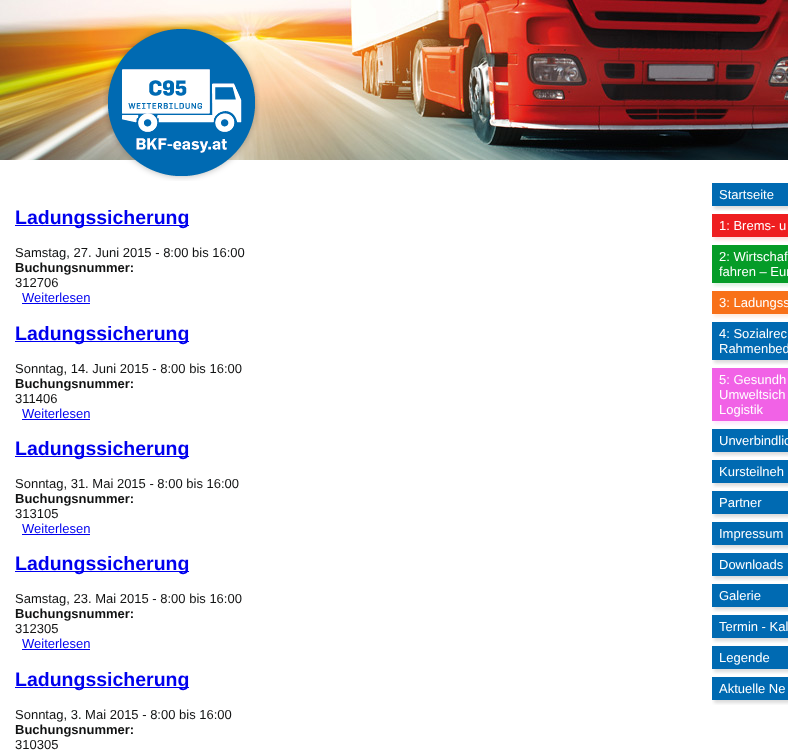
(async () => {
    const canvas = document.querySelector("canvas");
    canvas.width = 788;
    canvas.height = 753;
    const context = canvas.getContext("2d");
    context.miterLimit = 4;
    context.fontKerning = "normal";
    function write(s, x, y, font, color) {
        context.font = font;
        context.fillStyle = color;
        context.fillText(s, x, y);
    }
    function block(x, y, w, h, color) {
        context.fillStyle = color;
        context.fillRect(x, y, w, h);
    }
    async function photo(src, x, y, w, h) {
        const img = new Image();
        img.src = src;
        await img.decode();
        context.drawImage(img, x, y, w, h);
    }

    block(0, 0, 788, 753, "rgb(255, 255, 255)");
    await photo("media/1.png", 0, 0, 788, 160);
    await photo("media/2.png", 103, 24, 157, 157);
    block(15, 225, 174, 1, "rgb(0, 0, 238)");
    write("Ladungssicherung", 15, 224, "bold 19.5px Liberation Sans", "rgb(0, 0, 238)");
    write("Samstag, 27. Juni 2015 - 8:00 bis 16:00", 15, 257, "13px Liberation Sans", "rgb(18, 19, 19)");
    write("Buchungsnummer:", 15, 272, "bold 13px Liberation Sans", "rgb(18, 19, 19)");
    write("312706", 15, 287, "13px Liberation Sans", "rgb(18, 19, 19)");
    write("Weiterlesen", 22, 302, "13px Liberation Sans", "rgb(0, 0, 238)");
    block(22, 303, 68, 1, "rgb(0, 0, 238)");
    block(15, 341, 174, 1, "rgb(0, 0, 238)");
    write("Ladungssicherung", 15, 340, "bold 19.5px Liberation Sans", "rgb(0, 0, 238)");
    write("Sonntag, 14. Juni 2015 - 8:00 bis 16:00", 15, 373, "13px Liberation Sans", "rgb(18, 19, 19)");
    write("Buchungsnummer:", 15, 388, "bold 13px Liberation Sans", "rgb(18, 19, 19)");
    write("311406", 15, 403, "13px Liberation Sans", "rgb(18, 19, 19)");
    write("Weiterlesen", 22, 418, "13px Liberation Sans", "rgb(0, 0, 238)");
    block(22, 419, 68, 1, "rgb(0, 0, 238)");
    block(15, 456, 174, 1, "rgb(0, 0, 238)");
    write("Ladungssicherung", 15, 455, "bold 19.5px Liberation Sans", "rgb(0, 0, 238)");
    write("Sonntag, 31. Mai 2015 - 8:00 bis 16:00", 15, 488, "13px Liberation Sans", "rgb(18, 19, 19)");
    write("Buchungsnummer:", 15, 503, "bold 13px Liberation Sans", "rgb(18, 19, 19)");
    write("313105", 15, 518, "13px Liberation Sans", "rgb(18, 19, 19)");
    write("Weiterlesen", 22, 533, "13px Liberation Sans", "rgb(0, 0, 238)");
    block(22, 534, 68, 1, "rgb(0, 0, 238)");
    block(15, 571, 174, 1, "rgb(0, 0, 238)");
    write("Ladungssicherung", 15, 570, "bold 19.5px Liberation Sans", "rgb(0, 0, 238)");
    write("Samstag, 23. Mai 2015 - 8:00 bis 16:00", 15, 603, "13px Liberation Sans", "rgb(18, 19, 19)");
    write("Buchungsnummer:", 15, 618, "bold 13px Liberation Sans", "rgb(18, 19, 19)");
    write("312305", 15, 633, "13px Liberation Sans", "rgb(18, 19, 19)");
    write("Weiterlesen", 22, 648, "13px Liberation Sans", "rgb(0, 0, 238)");
    block(22, 649, 68, 1, "rgb(0, 0, 238)");
    block(15, 687, 174, 1, "rgb(0, 0, 238)");
    write("Ladungssicherung", 15, 686, "bold 19.5px Liberation Sans", "rgb(0, 0, 238)");
    write("Sonntag, 3. Mai 2015 - 8:00 bis 16:00", 15, 719, "13px Liberation Sans", "rgb(18, 19, 19)");
    write("Buchungsnummer:", 15, 734, "bold 13px Liberation Sans", "rgb(18, 19, 19)");
    write("310305", 15, 749, "13px Liberation Sans", "rgb(18, 19, 19)");
    await photo("media/3.png", 712, 183, 76, 28);
    write("Startseite", 719, 199, "13px Liberation Sans", "rgb(255, 255, 255)");
    await photo("media/4.png", 712, 214, 76, 28);
    write("1: Brems- u", 719, 230, "13px Liberation Sans", "rgb(255, 255, 255)");
    await photo("media/5.png", 712, 245, 76, 43);
    write("2: Wirtschaf", 719, 261, "13px Liberation Sans", "rgb(255, 255, 255)");
    write("fahren – Eur", 719, 276, "13px Liberation Sans", "rgb(255, 255, 255)");
    await photo("media/6.png", 712, 291, 76, 28);
    write("3: Ladungss", 719, 307, "13px Liberation Sans", "rgb(255, 255, 255)");
    await photo("media/7.png", 712, 322, 76, 43);
    write("4: Sozialrec", 719, 338, "13px Liberation Sans", "rgb(255, 255, 255)");
    write("Rahmenbed", 719, 353, "13px Liberation Sans", "rgb(255, 255, 255)");
    await photo("media/8.png", 712, 368, 76, 58);
    write("5: Gesundh", 719, 384, "13px Liberation Sans", "rgb(255, 255, 255)");
    write("Umweltsich", 719, 399, "13px Liberation Sans", "rgb(255, 255, 255)");
    write("Logistik", 719, 414, "13px Liberation Sans", "rgb(255, 255, 255)");
    await photo("media/3.png", 712, 429, 76, 28);
    write("Unverbindlic", 719, 445, "13px Liberation Sans", "rgb(255, 255, 255)");
    await photo("media/3.png", 712, 460, 76, 28);
    write("Kursteilneh", 719, 476, "13px Liberation Sans", "rgb(255, 255, 255)");
    await photo("media/3.png", 712, 491, 76, 28);
    write("Partner", 719, 507, "13px Liberation Sans", "rgb(255, 255, 255)");
    await photo("media/3.png", 712, 522, 76, 28);
    write("Impressum", 719, 538, "13px Liberation Sans", "rgb(255, 255, 255)");
    await photo("media/3.png", 712, 553, 76, 28);
    write("Downloads", 719, 569, "13px Liberation Sans", "rgb(255, 255, 255)");
    await photo("media/3.png", 712, 584, 76, 28);
    write("Galerie", 719, 600, "13px Liberation Sans", "rgb(255, 255, 255)");
    await photo("media/3.png", 712, 615, 76, 28);
    write("Termin - Kal", 719, 631, "13px Liberation Sans", "rgb(255, 255, 255)");
    await photo("media/3.png", 712, 646, 76, 28);
    write("Legende", 719, 662, "13px Liberation Sans", "rgb(255, 255, 255)");
    await photo("media/3.png", 712, 677, 76, 28);
    write("Aktuelle Ne", 719, 693, "13px Liberation Sans", "rgb(255, 255, 255)");
})();
